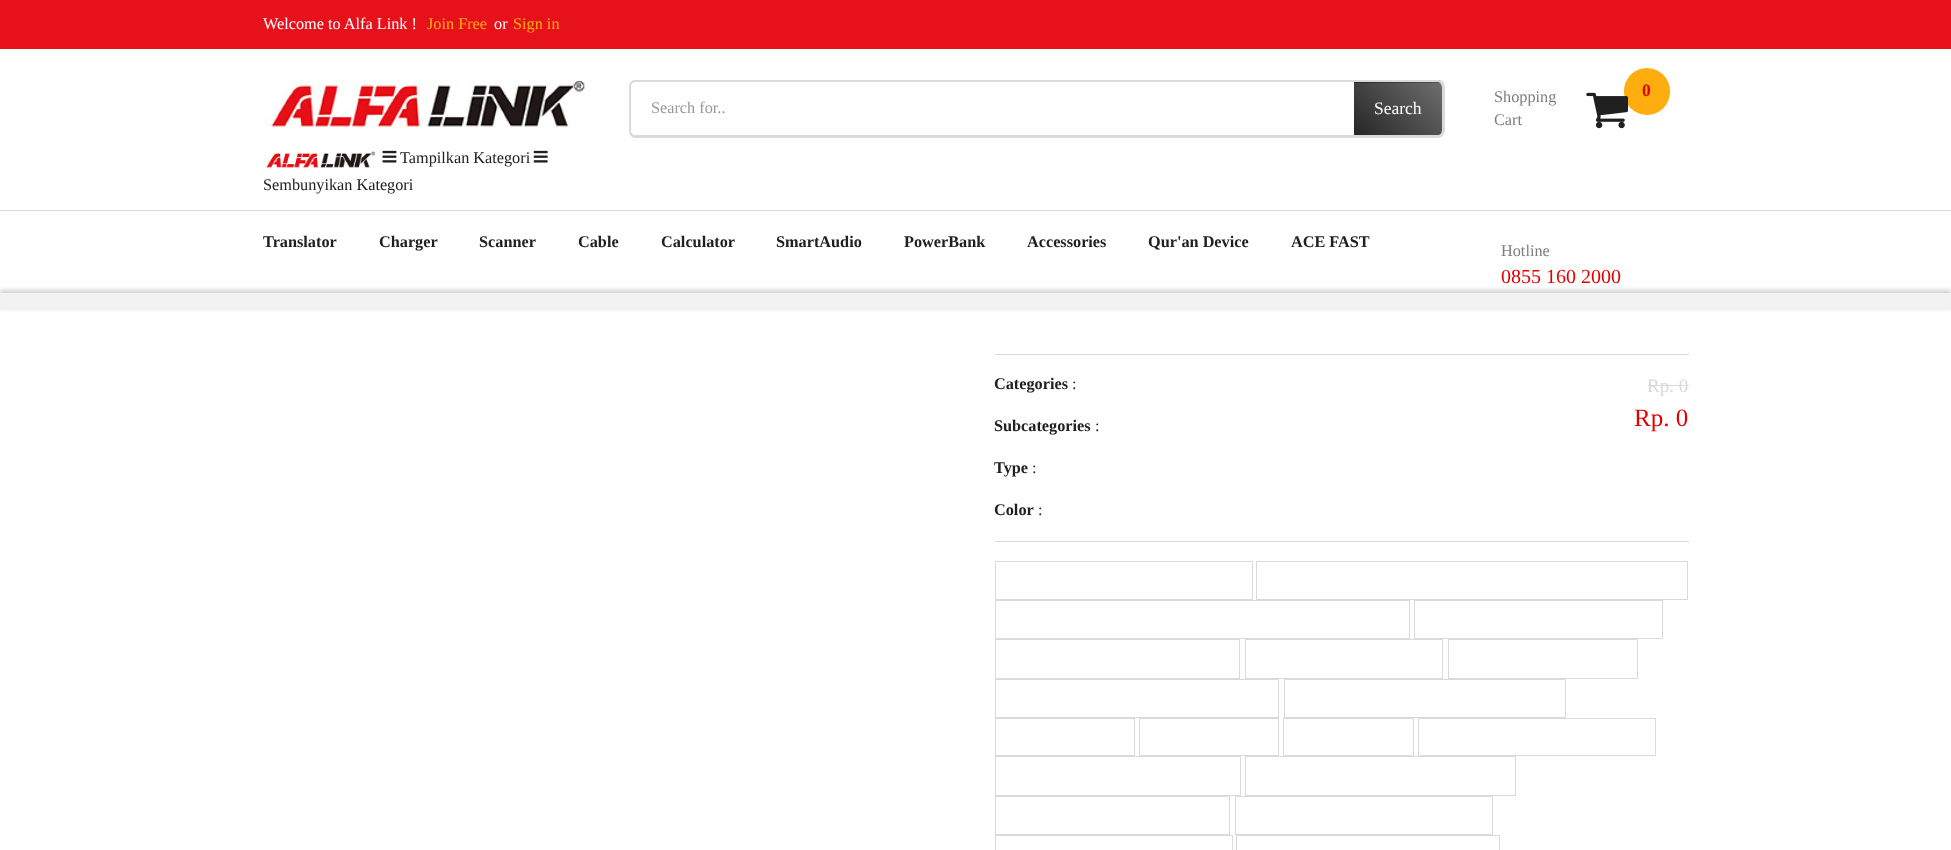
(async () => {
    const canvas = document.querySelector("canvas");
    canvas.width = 1951;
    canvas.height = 850;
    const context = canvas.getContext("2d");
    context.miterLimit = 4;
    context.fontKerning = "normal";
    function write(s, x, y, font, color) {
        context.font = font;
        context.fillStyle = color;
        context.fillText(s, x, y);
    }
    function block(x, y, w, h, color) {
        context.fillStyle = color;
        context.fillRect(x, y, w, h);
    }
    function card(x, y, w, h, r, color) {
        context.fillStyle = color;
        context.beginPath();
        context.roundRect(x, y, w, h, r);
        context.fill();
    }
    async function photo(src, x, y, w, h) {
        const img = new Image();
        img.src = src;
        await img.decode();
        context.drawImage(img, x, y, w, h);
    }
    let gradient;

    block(0, 0, 1951, 850, "rgb(255, 255, 255)");
    block(0, 0, 1951, 49, "rgb(230, 17, 27)");
    write("Welcome to Alfa Link !", 263, 29, "16.25px Liberation Serif", "rgb(255, 255, 255)");
    write("Join Free", 427, 29, "16.25px Liberation Serif", "rgb(255, 173, 15)");
    write("or", 494, 29, "16.25px Liberation Serif", "rgb(255, 255, 255)");
    write("Sign in", 513, 29, "16.25px Liberation Serif", "rgb(255, 173, 15)");
    context.fillStyle = "rgb(218, 218, 218)";
    context.beginPath();
    context.moveTo(635, 80);
    context.lineTo(1355, 80);
    context.lineTo(1355, 138);
    context.lineTo(635, 138);
    context.bezierCurveTo(632, 138, 629, 135, 629, 131);
    context.lineTo(629, 86);
    context.bezierCurveTo(629, 83, 632, 80, 635, 80);
    context.closePath();
    context.moveTo(635, 82);
    context.lineTo(1355, 82);
    context.lineTo(1355, 135);
    context.lineTo(635, 135);
    context.bezierCurveTo(633, 135, 631, 133, 631, 131);
    context.lineTo(631, 86);
    context.bezierCurveTo(631, 84, 633, 82, 635, 82);
    context.closePath();
    context.fill("evenodd");
    write("Search for..", 651, 113, "16.25px Liberation Serif", "rgb(153, 153, 153)");
    context.save();
    context.beginPath();
    context.roundRect(1354, 80, 91, 58, [0, 8, 8, 0]);
    context.clip();
    gradient = context.createLinearGradient(1363, 92, 1433, 21);
    gradient.addColorStop(0, "rgb(38, 38, 38)");
    gradient.addColorStop(1, "rgb(110, 110, 110)");
    context.fillStyle = gradient;
    context.fillRect(1354, 80, 89, 3);
    gradient = context.createLinearGradient(1452, 92, 1522, 21);
    gradient.addColorStop(0, "rgb(38, 38, 38)");
    gradient.addColorStop(1, "rgb(110, 110, 110)");
    context.fillStyle = gradient;
    context.fillRect(1443, 80, 1, 3);
    context.restore();
    gradient = context.createLinearGradient(1363, 144, 1433, 73);
    gradient.addColorStop(0, "rgb(38, 38, 38)");
    gradient.addColorStop(1, "rgb(110, 110, 110)");
    context.fillStyle = gradient;
    context.fillRect(1354, 83, 88, 52);
    context.fillStyle = "rgb(218, 218, 218)";
    context.beginPath();
    context.moveTo(1354, 80);
    context.lineTo(1438, 80);
    context.bezierCurveTo(1442, 80, 1445, 83, 1445, 88);
    context.lineTo(1445, 130);
    context.bezierCurveTo(1445, 134, 1442, 138, 1438, 138);
    context.lineTo(1354, 138);
    context.closePath();
    context.moveTo(1354, 82);
    context.lineTo(1438, 82);
    context.bezierCurveTo(1440, 82, 1442, 85, 1442, 88);
    context.lineTo(1442, 130);
    context.bezierCurveTo(1442, 133, 1440, 135, 1438, 135);
    context.lineTo(1354, 135);
    context.closePath();
    context.fill("evenodd");
    write("Search", 1374, 114, "17.5px Liberation Serif", "rgb(255, 255, 255)");
    write("Shopping", 1494, 102, "16.25px Liberation Serif", "rgb(126, 126, 126)");
    write("Cart", 1494, 125, "16.25px Liberation Serif", "rgb(126, 126, 126)");
    card(1624, 68, 46, 47, 23, "rgb(255, 173, 15)");
    write("0", 1642, 96, "bold 17.5px Liberation Serif", "rgb(225, 0, 0)");
    await photo("media/1.png", 1586, 92, 43, 37);
    await photo("media/2.png", 264, 80, 321, 47);
    await photo("media/3.png", 266, 151, 109, 17);
    await photo("media/4.png", 382, 150, 15, 13);
    write("Tampilkan Kategori", 400, 163, "16.25px Liberation Serif", "rgb(32, 32, 32)");
    await photo("media/5.png", 533, 150, 15, 13);
    write("Sembunyikan Kategori", 263, 190, "16.25px Liberation Serif", "rgb(32, 32, 32)");
    block(0, 210, 1951, 1, "rgb(218, 218, 218)");
    write("Translator", 263, 247, "bold 16.25px Liberation Serif", "rgb(32, 32, 32)");
    write("Charger", 379, 247, "bold 16.25px Liberation Serif", "rgb(32, 32, 32)");
    write("Scanner", 479, 247, "bold 16.25px Liberation Serif", "rgb(32, 32, 32)");
    write("Cable", 578, 247, "bold 16.25px Liberation Serif", "rgb(32, 32, 32)");
    write("Calculator", 661, 247, "bold 16.25px Liberation Serif", "rgb(32, 32, 32)");
    write("SmartAudio", 776, 247, "bold 16.25px Liberation Serif", "rgb(32, 32, 32)");
    write("PowerBank", 904, 247, "bold 16.25px Liberation Serif", "rgb(32, 32, 32)");
    write("Accessories", 1027, 247, "bold 16.25px Liberation Serif", "rgb(32, 32, 32)");
    write("Qur'an Device", 1148, 247, "bold 16.25px Liberation Serif", "rgb(32, 32, 32)");
    write("ACE FAST", 1291, 247, "bold 16.25px Liberation Serif", "rgb(32, 32, 32)");
    write("Hotline", 1501, 256, "16.25px Liberation Serif", "rgb(126, 126, 126)");
    context.fillStyle = "rgb(209, 209, 209)";
    context.filter = "blur(2px)";
    context.beginPath();
    context.rect(0, 290, 1951, 18);
    context.fill();
    context.filter = "none";
    write("0855 160 2000", 1501, 283, "20px Liberation Serif", "rgb(225, 0, 0)");
    block(0, 293, 1951, 17, "rgb(242, 242, 242)");
    block(995, 354, 694, 1, "rgb(218, 218, 218)");
    block(995, 541, 694, 1, "rgb(218, 218, 218)");
    write("Categories", 994, 389, "bold 16.25px Liberation Serif", "rgb(32, 32, 32)");
    write(":", 1072, 389, "16.25px Liberation Serif", "rgb(32, 32, 32)");
    write("Subcategories", 994, 431, "bold 16.25px Liberation Serif", "rgb(32, 32, 32)");
    write(":", 1095, 431, "16.25px Liberation Serif", "rgb(32, 32, 32)");
    write("Type", 994, 473, "bold 16.25px Liberation Serif", "rgb(32, 32, 32)");
    write(":", 1032, 473, "16.25px Liberation Serif", "rgb(32, 32, 32)");
    write("Color", 994, 515, "bold 16.25px Liberation Serif", "rgb(32, 32, 32)");
    write(":", 1038, 515, "16.25px Liberation Serif", "rgb(32, 32, 32)");
    write("Rp. 0", 1647, 392, "19px Liberation Serif", "rgb(218, 218, 218)");
    block(1648, 385, 41, 1, "rgb(218, 218, 218)");
    write("Rp. 0", 1634, 426, "25px Liberation Serif", "rgb(225, 0, 0)");
    context.strokeStyle = "rgb(218, 218, 218)";
    context.strokeRect(995.5, 561.5, 257, 38);
    context.strokeRect(1256.5, 561.5, 431, 38);
    context.strokeRect(995.5, 600.5, 414, 38);
    context.strokeRect(1414.5, 600.5, 248, 38);
    context.strokeRect(995.5, 639.5, 244, 39);
    context.strokeRect(1245.5, 639.5, 197, 39);
    context.strokeRect(1448.5, 639.5, 189, 39);
    context.strokeRect(995.5, 679.5, 283, 38);
    context.strokeRect(1284.5, 679.5, 281, 38);
    context.strokeRect(995.5, 718.5, 139, 37);
    context.strokeRect(1139.5, 718.5, 139, 37);
    context.strokeRect(1283.5, 718.5, 130, 37);
    context.strokeRect(1418.5, 718.5, 237, 37);
    context.strokeRect(995.5, 756.5, 245, 39);
    context.strokeRect(1245.5, 756.5, 270, 39);
    context.strokeRect(995.5, 796.5, 234, 38);
    context.strokeRect(1235.5, 796.5, 257, 38);
    context.strokeRect(995.5, 835.5, 237, 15);
    context.strokeRect(1236.5, 835.5, 263, 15);
})();
